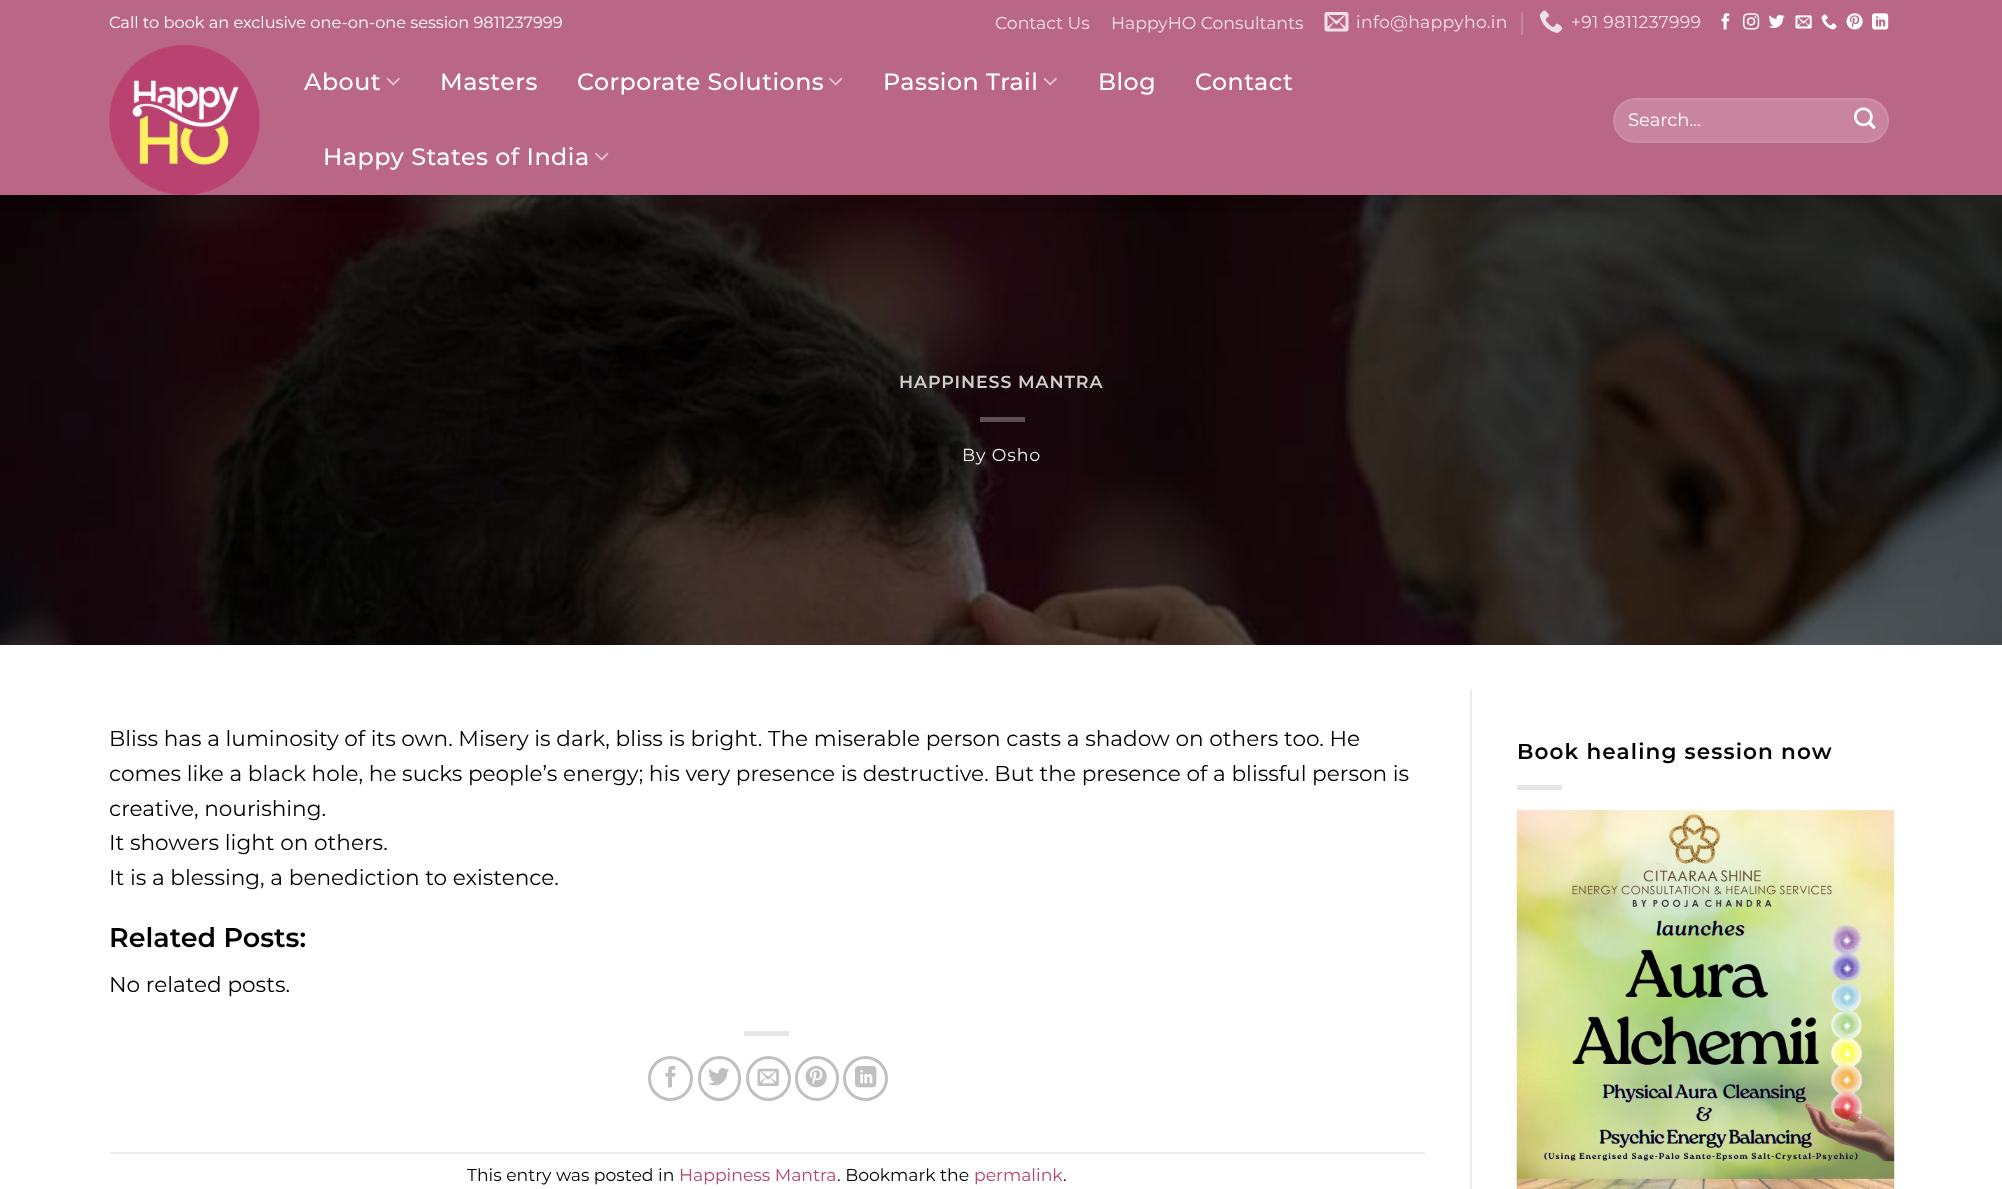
(async () => {
    const canvas = document.querySelector("canvas");
    canvas.width = 2002;
    canvas.height = 1189;
    const context = canvas.getContext("2d");
    context.miterLimit = 4;
    context.fontKerning = "normal";
    function write(s, x, y, font, color) {
        context.font = font;
        context.fillStyle = color;
        context.fillText(s, x, y);
    }
    function block(x, y, w, h, color) {
        context.fillStyle = color;
        context.fillRect(x, y, w, h);
    }
    function card(x, y, w, h, r, color) {
        context.fillStyle = color;
        context.beginPath();
        context.roundRect(x, y, w, h, r);
        context.fill();
    }
    async function photo(src, x, y, w, h) {
        const img = new Image();
        img.src = src;
        await img.decode();
        context.drawImage(img, x, y, w, h);
    }

    block(0, 0, 2002, 1189, "rgb(255, 255, 255)");
    await photo("media/14.png", 0, 195, 2002, 450);
    context.fillStyle = "rgba(0, 0, 0, 0.15)";
    context.filter = "blur(7.5px)";
    context.beginPath();
    context.rect(2, 2, 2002, 195);
    context.fill();
    context.filter = "none";
    block(0, 0, 2002, 195, "rgb(186, 102, 133)");
    write("Call to book an exclusive one-on-one session 9811237999", 109, 28, "16.2px Montserrat", "rgb(255, 255, 255)");
    write("Contact Us", 995, 29, "17.25px Montserrat", "rgb(241, 224, 231)");
    write("HappyHO Consultants", 1111, 29, "17.25px Montserrat", "rgb(241, 224, 231)");
    await photo("media/1.png", 1324, 12, 25, 20);
    context.letterSpacing = "0.3px";
    write("info@happyho.in", 1356, 28, "17.25px Montserrat", "rgb(241, 224, 231)");
    block(1521, 12, 2, 23, "rgb(200, 133, 157)");
    await photo("media/2.png", 1539, 10, 24, 23);
    write("+91 9811237999", 1571, 28, "17.25px Montserrat", "rgb(241, 224, 231)");
    await photo("media/3.png", 1721, 13, 9, 17);
    await photo("media/4.png", 1743, 13, 17, 17);
    await photo("media/5.png", 1768, 14, 17, 14);
    await photo("media/6.png", 1795, 15, 17, 14);
    await photo("media/7.png", 1821, 14, 16, 16);
    await photo("media/8.png", 1846, 13, 17, 17);
    await photo("media/9.png", 1872, 13, 17, 17);
    await photo("media/10.png", 109, 45, 151, 150);
    context.letterSpacing = "0.5px";
    write("About", 304, 90, "500 23.75px Montserrat", "rgb(255, 255, 255)");
    await photo("media/11.png", 386, 77, 14, 9);
    write("Masters", 440, 90, "500 23.75px Montserrat", "rgb(255, 255, 255)");
    write("Corporate Solutions", 577, 90, "500 23.75px Montserrat", "rgb(255, 255, 255)");
    await photo("media/12.png", 829, 77, 14, 9);
    write("Passion Trail", 883, 90, "500 23.75px Montserrat", "rgb(255, 255, 255)");
    await photo("media/11.png", 1043, 77, 14, 9);
    write("Blog", 1098, 90, "500 23.75px Montserrat", "rgb(255, 255, 255)");
    write("Contact", 1195, 90, "500 23.75px Montserrat", "rgb(255, 255, 255)");
    write("Happy States of India", 323, 165, "500 23.75px Montserrat", "rgb(255, 255, 255)");
    await photo("media/12.png", 595, 152, 14, 9);
    card(1613, 98, 276, 45, 22.5, "rgb(200, 133, 157)");
    context.beginPath();
    context.roundRect(1614, 99, 274, 43, 21.5);
    context.strokeStyle = "rgba(255, 255, 255, 0.09)";
    context.lineWidth = 2;
    context.stroke();
    context.letterSpacing = "0px";
    write("Search…", 1628, 126, "18px Montserrat", "rgb(255, 255, 255)");
    await photo("media/13.png", 1854, 107, 22, 22);
    context.letterSpacing = "0.9px";
    write("HAPPINESS MANTRA", 899, 388, "600 17.4px Montserrat", "rgb(209, 206, 207)");
    block(980, 417, 45, 5, "rgb(93, 80, 85)");
    write("By Osho", 962, 461, "17.4px Montserrat", "rgb(241, 241, 241)");
    context.letterSpacing = "0px";
    write("Bliss has a luminosity of its own. Misery is dark, bliss is bright. The miserable person casts a shadow on others too. He", 109, 746, "21.6px Montserrat", "rgb(0, 0, 0)");
    write("comes like a black hole, he sucks people’s energy; his very presence is destructive. But the presence of a blissful person is", 109, 781, "21.6px Montserrat", "rgb(0, 0, 0)");
    write("creative, nourishing.", 109, 816, "21.6px Montserrat", "rgb(0, 0, 0)");
    write("It showers light on others.", 109, 850, "21.6px Montserrat", "rgb(0, 0, 0)");
    write("It is a blessing, a benediction to existence.", 109, 885, "21.6px Montserrat", "rgb(0, 0, 0)");
    write("Related Posts:", 109, 947, "600 27px Montserrat", "rgb(0, 0, 0)");
    write("No related posts.", 109, 992, "21.6px Montserrat", "rgb(0, 0, 0)");
    block(744, 1031, 45, 5, "rgb(230, 230, 230)");
    context.beginPath();
    context.arc(670.5, 1078.5, 21, 0, Math.PI * 2);
    context.strokeStyle = "rgb(192, 192, 192)";
    context.lineWidth = 3;
    context.stroke();
    await photo("media/15.png", 665, 1065, 11, 23);
    context.beginPath();
    context.roundRect(699.5, 1057.5, 40, 42, 20);
    context.stroke();
    await photo("media/16.png", 708, 1068, 21, 18);
    context.beginPath();
    context.arc(768.5, 1078.5, 21, 0, Math.PI * 2);
    context.stroke();
    await photo("media/17.png", 757, 1068, 22, 18);
    context.beginPath();
    context.roundRect(796.5, 1057.5, 41, 42, 20.5);
    context.stroke();
    await photo("media/18.png", 805, 1066, 22, 22);
    context.beginPath();
    context.arc(865.5, 1078.5, 21, 0, Math.PI * 2);
    context.stroke();
    await photo("media/19.png", 855, 1065, 22, 23);
    block(110, 1152, 1315, 2, "rgb(236, 236, 236)");
    write("This entry was posted in", 467, 1181, "17.25px Montserrat", "rgb(0, 0, 0)");
    write("Happiness Mantra", 679, 1181, "17.25px Montserrat", "rgb(186, 66, 113)");
    write(". Bookmark the", 837, 1181, "17.25px Montserrat", "rgb(0, 0, 0)");
    write("permalink", 974, 1181, "17.25px Montserrat", "rgb(186, 66, 113)");
    write(".", 1063, 1181, "17.25px Montserrat", "rgb(0, 0, 0)");
    block(1470, 690, 2, 499, "rgb(236, 236, 236)");
    context.letterSpacing = "1.1px";
    write("Book healing session now", 1517, 759, "600 21.6px Montserrat", "rgb(0, 0, 0)");
    block(1517, 785, 45, 5, "rgb(230, 230, 230)");
    await photo("media/20.png", 1516, 810, 379, 379);
})();
